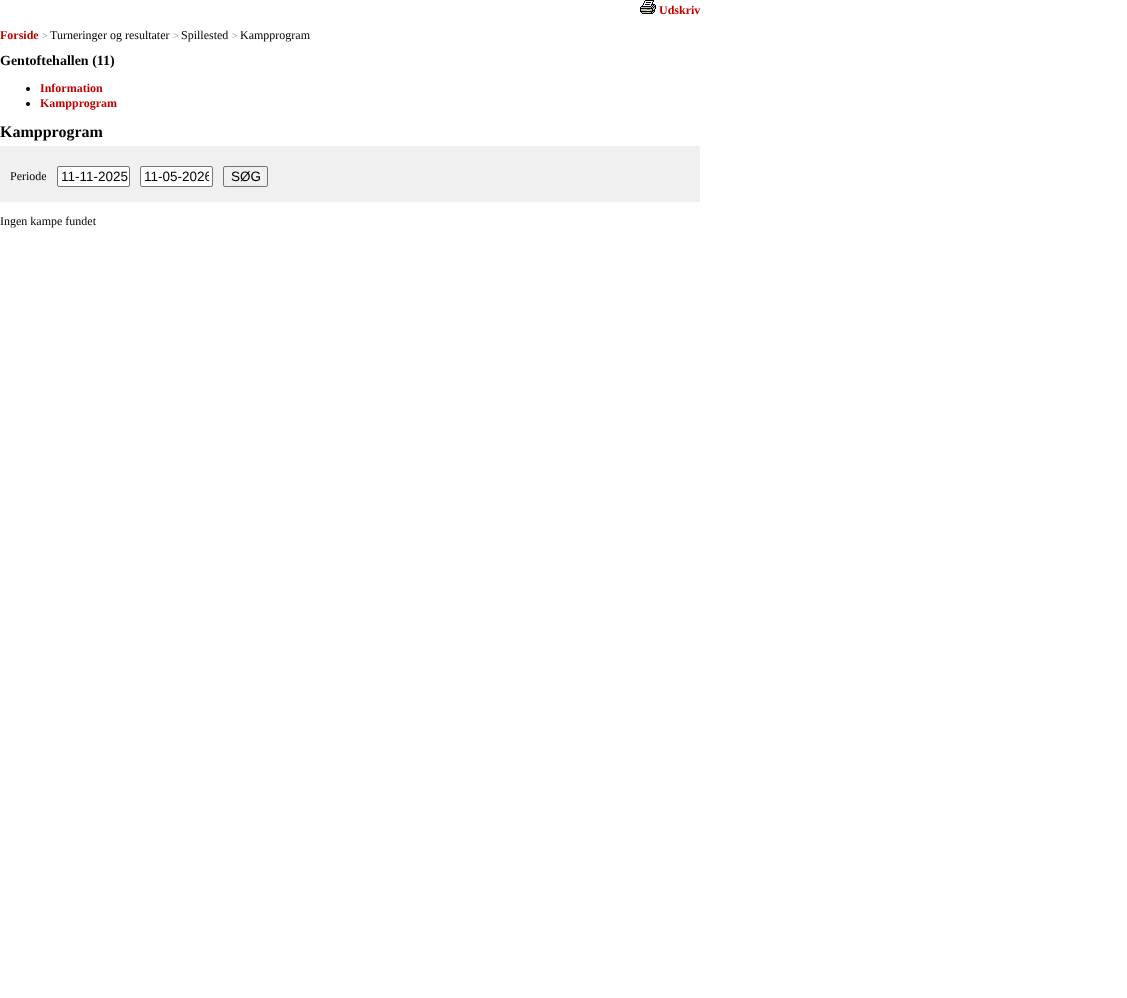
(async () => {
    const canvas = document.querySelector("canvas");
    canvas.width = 1127;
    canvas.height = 998;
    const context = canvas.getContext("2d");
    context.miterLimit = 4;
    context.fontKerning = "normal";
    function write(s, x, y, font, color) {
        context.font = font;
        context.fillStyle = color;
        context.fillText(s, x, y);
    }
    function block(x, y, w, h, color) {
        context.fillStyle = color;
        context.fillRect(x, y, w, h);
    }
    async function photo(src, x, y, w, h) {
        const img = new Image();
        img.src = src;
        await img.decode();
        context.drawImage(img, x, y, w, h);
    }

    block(0, 0, 1127, 998, "rgb(255, 255, 255)");
    await photo("media/1.png", 640, 0, 16, 14);
    write("Udskriv", 659, 14, "bold 12px Liberation Serif", "rgb(195, 0, 0)");
    write("Forside", 0, 39, "bold 12px Liberation Serif", "rgb(195, 0, 0)");
    write(">", 42, 39, "10px Liberation Serif", "rgb(128, 128, 128)");
    write("Turneringer og resultater", 50, 39, "12px Liberation Serif", "rgb(0, 0, 0)");
    write(">", 173, 39, "10px Liberation Serif", "rgb(128, 128, 128)");
    write("Spillested", 181, 39, "12px Liberation Serif", "rgb(0, 0, 0)");
    write(">", 232, 39, "10px Liberation Serif", "rgb(128, 128, 128)");
    write("Kampprogram", 240, 39, "12px Liberation Serif", "rgb(0, 0, 0)");
    write("Gentoftehallen (11)", 0, 65, "bold 14px Liberation Serif", "rgb(0, 0, 0)");
    context.beginPath();
    context.arc(28, 89, 2, 0, Math.PI * 2);
    context.fill();
    write("Information", 40, 92, "bold 12px Liberation Serif", "rgb(195, 0, 0)");
    context.fillStyle = "rgb(0, 0, 0)";
    context.beginPath();
    context.arc(28, 104, 2, 0, Math.PI * 2);
    context.fill();
    write("Kampprogram", 40, 107, "bold 12px Liberation Serif", "rgb(195, 0, 0)");
    write("Kampprogram", 0, 137, "bold 16px Liberation Serif", "rgb(0, 0, 0)");
    block(0, 146, 700, 56, "rgb(240, 240, 240)");
    write("Periode", 10, 180, "12px Liberation Serif", "rgb(0, 0, 0)");
    context.fillStyle = "rgb(255, 255, 255)";
    context.beginPath();
    context.roundRect(57.5, 166.5, 72, 20, 1.5);
    context.fill();
    context.strokeStyle = "rgb(118, 118, 118)";
    context.stroke();
    write("11-11-2025", 61, 181, "13.5px Liberation Sans", "rgb(0, 0, 0)");
    context.fillStyle = "rgb(255, 255, 255)";
    context.beginPath();
    context.roundRect(140.5, 166.5, 72, 20, 1.5);
    context.fill();
    context.stroke();
    context.save();
    context.beginPath();
    context.rect(144, 169, 65, 15);
    context.clip();
    write("11-05-2026", 144, 181, "13.5px Liberation Sans", "rgb(0, 0, 0)");
    context.restore();
    context.beginPath();
    context.roundRect(223.5, 166.5, 44, 20, 1.5);
    context.stroke();
    write("SØG", 231, 181, "13.5px Liberation Sans", "rgb(0, 0, 0)");
    write("Ingen kampe fundet", 0, 225, "12px Liberation Serif", "rgb(0, 0, 0)");
})();
